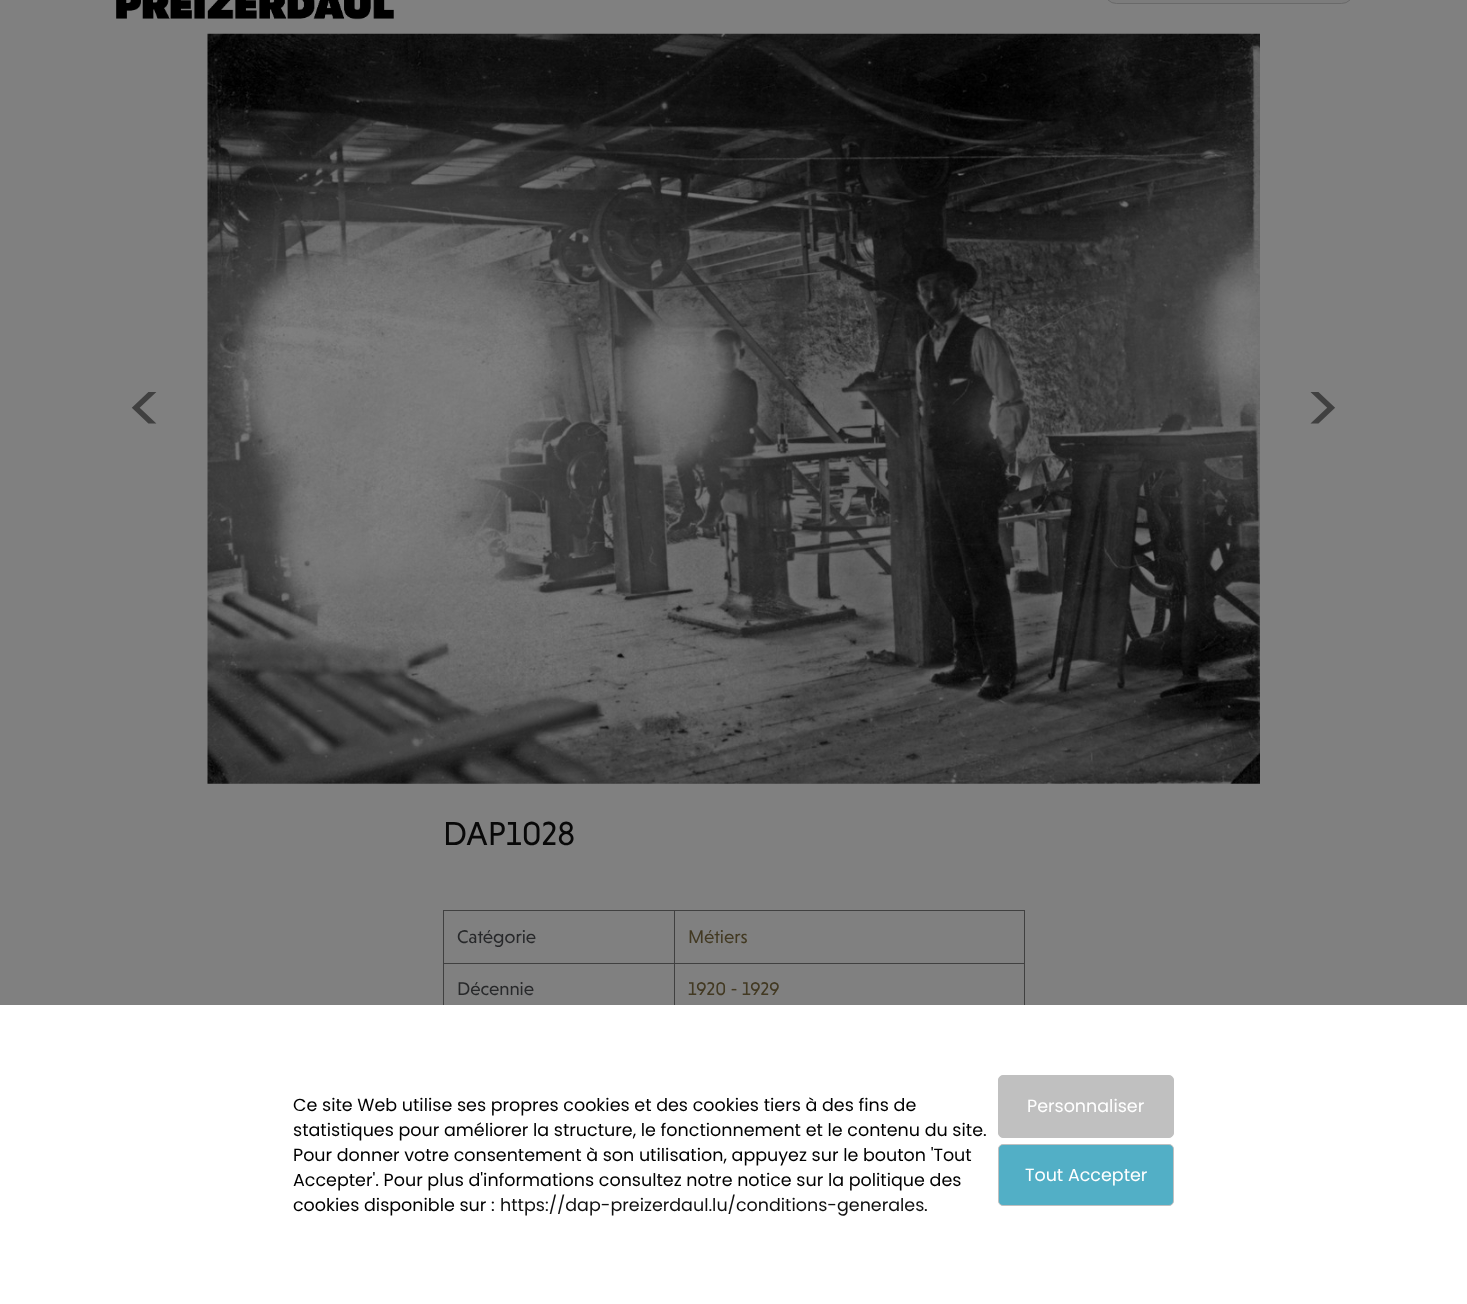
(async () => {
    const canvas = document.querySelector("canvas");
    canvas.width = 1467;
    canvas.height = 1304;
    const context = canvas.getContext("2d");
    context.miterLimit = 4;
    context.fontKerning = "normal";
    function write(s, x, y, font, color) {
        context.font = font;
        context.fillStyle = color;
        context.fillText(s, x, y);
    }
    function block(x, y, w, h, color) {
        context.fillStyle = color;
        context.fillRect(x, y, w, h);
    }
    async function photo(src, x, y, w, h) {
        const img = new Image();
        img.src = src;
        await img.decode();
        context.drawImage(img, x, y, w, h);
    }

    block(0, 0, 1467, 1304, "rgb(128, 128, 128)");
    context.fillStyle = "rgb(124, 124, 124)";
    context.beginPath();
    context.roundRect(1104.5, -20.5, 249, 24, 19);
    context.fill();
    context.strokeStyle = "rgb(105, 105, 105)";
    context.stroke();
    await photo("media/1.png", 116, 0, 278, 20);
    write("<", 126, 433, "69px Poppins", "rgb(64, 64, 64)");
    await photo("media/2.png", 207, 33, 1053, 751);
    write(">", 1304, 433, "69px Poppins", "rgb(64, 64, 64)");
    write("DAP1028", 443, 845, "34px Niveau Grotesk", "rgb(8, 8, 8)");
    block(443, 910, 582, 1, "rgb(64, 64, 64)");
    block(1024, 910, 1, 95, "rgb(64, 64, 64)");
    block(443, 910, 1, 95, "rgb(64, 64, 64)");
    block(674, 963, 1, 42, "rgb(64, 64, 64)");
    block(674, 963, 351, 1, "rgb(64, 64, 64)");
    block(674, 910, 1, 54, "rgb(64, 64, 64)");
    block(443, 963, 232, 1, "rgb(64, 64, 64)");
    write("Catégorie", 457, 943, "18.75px Niveau Grotesk", "rgb(39, 40, 42)");
    write("Métiers", 688, 943, "18.75px Niveau Grotesk", "rgb(66, 57, 34)");
    write("Décennie", 457, 995, "18.75px Niveau Grotesk", "rgb(39, 40, 42)");
    write("1920 - 1929", 688, 995, "18.75px Niveau Grotesk", "rgb(66, 57, 34)");
    block(0, 1005, 1467, 299, "rgb(255, 255, 255)");
    write("Ce site Web utilise ses propres cookies et des cookies tiers à des fins de", 293, 1111, "17.5px Poppins", "rgb(0, 0, 0)");
    write("statistiques pour améliorer la structure, le fonctionnement et le contenu du site.", 293, 1136, "17.5px Poppins", "rgb(0, 0, 0)");
    write("Pour donner votre consentement à son utilisation, appuyez sur le bouton 'Tout", 293, 1161, "17.5px Poppins", "rgb(0, 0, 0)");
    write("Accepter'. Pour plus d'informations consultez notre notice sur la politique des", 293, 1186, "17.5px Poppins", "rgb(0, 0, 0)");
    write("cookies disponible sur :", 293, 1211, "17.5px Poppins", "rgb(0, 0, 0)");
    write("https://dap-preizerdaul.lu/conditions-generales", 500, 1211, "17.5px Poppins", "rgb(16, 16, 16)");
    write(".", 924, 1211, "17.5px Poppins", "rgb(0, 0, 0)");
    context.fillStyle = "rgb(192, 192, 192)";
    context.beginPath();
    context.roundRect(998.5, 1075.5, 175, 62, 4.5);
    context.fill();
    context.strokeStyle = "rgb(192, 192, 192)";
    context.stroke();
    write("Personnaliser", 1027, 1112, "17.5px Poppins", "rgb(255, 255, 255)");
    context.fillStyle = "rgb(82, 175, 198)";
    context.beginPath();
    context.roundRect(998.5, 1144.5, 175, 61, 4.5);
    context.fill();
    context.stroke();
    write("Tout Accepter", 1025, 1181, "17.5px Poppins", "rgb(255, 255, 255)");
})();
